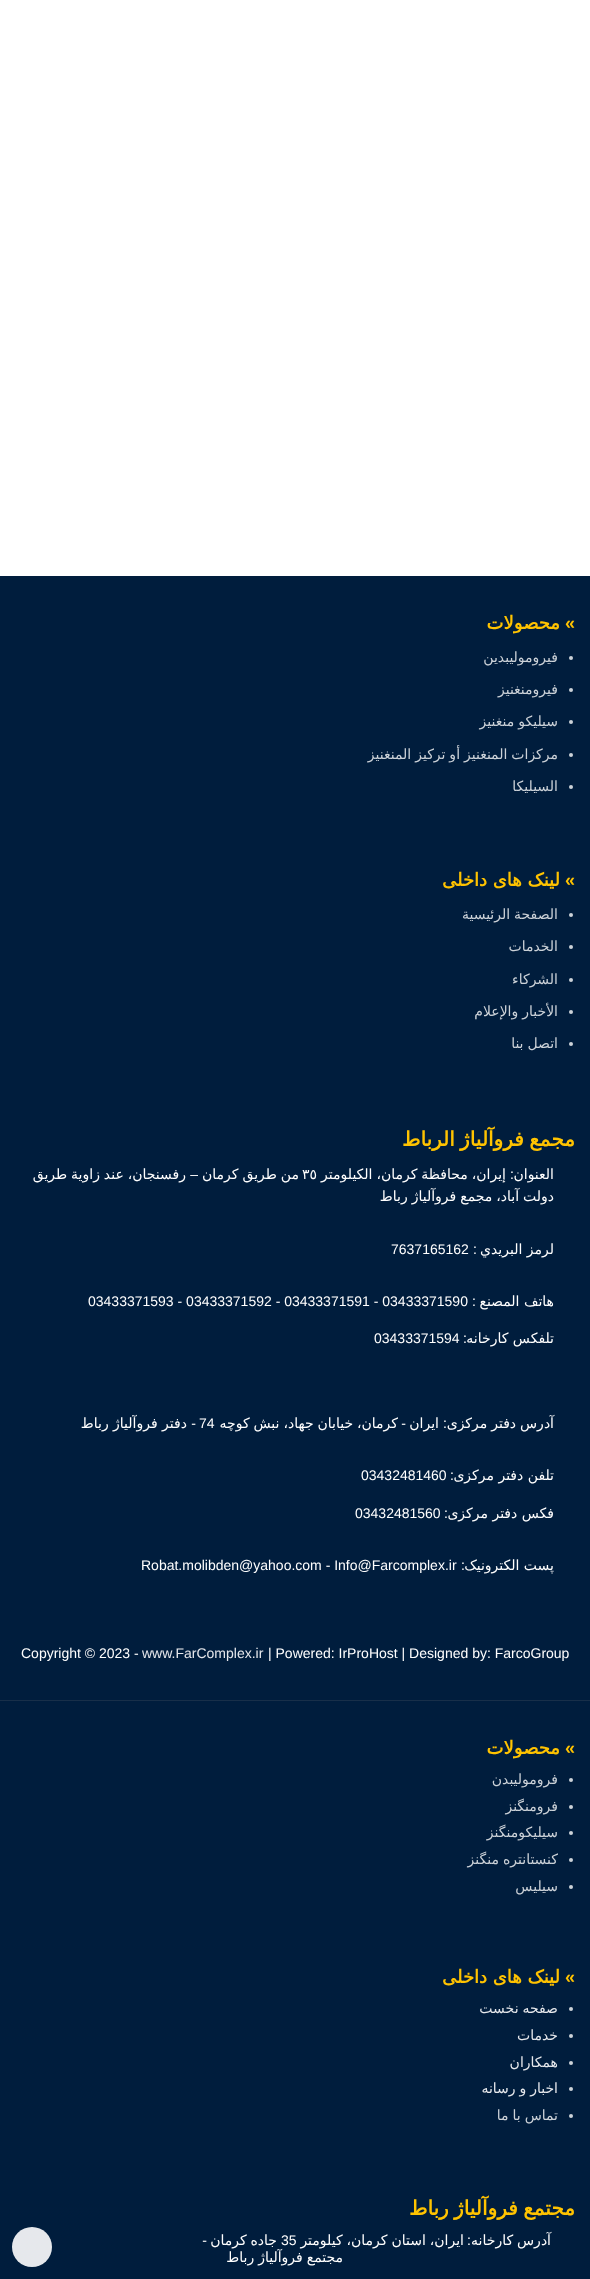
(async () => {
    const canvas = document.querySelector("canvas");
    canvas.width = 590;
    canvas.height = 2279;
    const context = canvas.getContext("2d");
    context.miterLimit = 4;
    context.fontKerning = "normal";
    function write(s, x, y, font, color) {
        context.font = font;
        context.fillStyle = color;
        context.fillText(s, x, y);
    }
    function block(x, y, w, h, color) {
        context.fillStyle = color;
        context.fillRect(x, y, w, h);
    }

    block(0, 0, 590, 2279, "rgb(255, 255, 255)");
    block(0, 576, 590, 1124, "rgb(0, 29, 61)");
    context.direction = "rtl";
    write("»", 575, 629, "bold 18px Liberation Sans", "rgb(255, 195, 0)");
    write("محصولات", 560, 629, "bold 18px DejaVu Sans", "rgb(255, 195, 0)");
    context.fillStyle = "rgb(204, 210, 216)";
    context.beginPath();
    context.arc(571, 658, 2, 0, Math.PI * 2);
    context.fill();
    write("فيروموليبدين", 558, 662, "14px DejaVu Sans", "rgb(204, 210, 216)");
    context.beginPath();
    context.arc(571, 690, 2, 0, Math.PI * 2);
    context.fill();
    write("فيرومنغنيز", 558, 694, "14px DejaVu Sans", "rgb(204, 210, 216)");
    context.beginPath();
    context.arc(571, 722, 2, 0, Math.PI * 2);
    context.fill();
    context.wordSpacing = "-0.5px";
    write("سيليكو منغنيز", 558, 726, "14px DejaVu Sans", "rgb(204, 210, 216)");
    context.beginPath();
    context.arc(571, 755, 2, 0, Math.PI * 2);
    context.fill();
    write("مركزات المنغنيز أو تركيز المنغنيز", 558, 759, "14px DejaVu Sans", "rgb(204, 210, 216)");
    context.beginPath();
    context.arc(571, 787, 2, 0, Math.PI * 2);
    context.fill();
    context.wordSpacing = "0px";
    write("السيليكا", 558, 791, "14px DejaVu Sans", "rgb(204, 210, 216)");
    write("»", 575, 886, "bold 18px Liberation Sans", "rgb(255, 195, 0)");
    write("لینک های داخلی", 560, 886, "bold 18px DejaVu Sans", "rgb(255, 195, 0)");
    context.fillStyle = "rgb(204, 210, 216)";
    context.beginPath();
    context.arc(571, 915, 2, 0, Math.PI * 2);
    context.fill();
    context.wordSpacing = "-0.5px";
    write("الصفحة الرئيسية", 558, 919, "14px DejaVu Sans", "rgb(204, 210, 216)");
    context.beginPath();
    context.arc(571, 947, 2, 0, Math.PI * 2);
    context.fill();
    context.wordSpacing = "0px";
    write("الخدمات", 558, 951, "14px DejaVu Sans", "rgb(204, 210, 216)");
    context.beginPath();
    context.arc(571, 980, 2, 0, Math.PI * 2);
    context.fill();
    write("الشركاء", 558, 984, "14px DejaVu Sans", "rgb(204, 210, 216)");
    context.beginPath();
    context.arc(571, 1012, 2, 0, Math.PI * 2);
    context.fill();
    context.wordSpacing = "-0.5px";
    write("الأخبار والإعلام", 558, 1016, "14px DejaVu Sans", "rgb(204, 210, 216)");
    context.beginPath();
    context.arc(571, 1044, 2, 0, Math.PI * 2);
    context.fill();
    write("اتصل بنا", 558, 1048, "14px DejaVu Sans", "rgb(204, 210, 216)");
    context.wordSpacing = "-1px";
    write("مجمع فروآلیاژ الرباط", 575, 1146, "bold 20px DejaVu Sans", "rgb(255, 195, 0)");
    context.wordSpacing = "0px";
    write("العنوان", 554, 1179, "14px DejaVu Sans", "rgb(255, 255, 255)");
    write(":", 514, 1179, "14px Liberation Sans", "rgb(255, 255, 255)");
    context.wordSpacing = "-0.5px";
    write("إيران، محافظة كرمان، الكيلومتر", 506, 1179, "14px DejaVu Sans", "rgb(255, 255, 255)");
    context.wordSpacing = "0px";
    context.direction = "ltr";
    write("٣٥", 302, 1179, "14px DejaVu Sans", "rgb(255, 255, 255)");
    context.wordSpacing = "-0.5px";
    context.direction = "rtl";
    write("من طريق كرمان", 299, 1179, "14px DejaVu Sans", "rgb(255, 255, 255)");
    context.wordSpacing = "0px";
    write("–", 198, 1179, "14px Liberation Sans", "rgb(255, 255, 255)");
    context.wordSpacing = "-0.5px";
    write("رفسنجان، عند زاوية طريق", 186, 1179, "14px DejaVu Sans", "rgb(255, 255, 255)");
    write("دولت آباد، مجمع فروآلياژ رباط", 554, 1201, "14px DejaVu Sans", "rgb(255, 255, 255)");
    context.wordSpacing = "0px";
    write("لرمز البريدي", 554, 1254, "14px DejaVu Sans", "rgb(255, 255, 255)");
    write(":", 477, 1254, "14px Liberation Sans", "rgb(255, 255, 255)");
    context.direction = "ltr";
    write("7637165162", 391, 1254, "14px Liberation Sans", "rgb(255, 255, 255)");
    context.direction = "rtl";
    write("هاتف المصنع", 554, 1306, "14px DejaVu Sans", "rgb(255, 255, 255)");
    write(":", 476, 1306, "14px Liberation Sans", "rgb(255, 255, 255)");
    context.direction = "ltr";
    write("03433371593 - 03433371592 - 03433371591 - 03433371590", 88, 1306, "14px Liberation Sans", "rgb(255, 255, 255)");
    context.direction = "rtl";
    write("تلفکس کارخانه", 554, 1343, "14px DejaVu Sans", "rgb(255, 255, 255)");
    write(":", 467, 1343, "14px Liberation Sans", "rgb(255, 255, 255)");
    context.direction = "ltr";
    write("03433371594", 374, 1343, "14px Liberation Sans", "rgb(255, 255, 255)");
    context.wordSpacing = "-0.5px";
    context.direction = "rtl";
    write("آدرس دفتر مرکزی", 554, 1428, "14px DejaVu Sans", "rgb(255, 255, 255)");
    context.wordSpacing = "0px";
    write(":", 447, 1428, "14px Liberation Sans", "rgb(255, 255, 255)");
    write("ایران", 439, 1428, "14px DejaVu Sans", "rgb(255, 255, 255)");
    write("-", 406, 1428, "14px Liberation Sans", "rgb(255, 255, 255)");
    context.wordSpacing = "-0.5px";
    write("کرمان، خیابان جهاد، نبش کوچه", 398, 1428, "14px DejaVu Sans", "rgb(255, 255, 255)");
    context.wordSpacing = "0px";
    context.direction = "ltr";
    write("74", 199, 1428, "14px Liberation Sans", "rgb(255, 255, 255)");
    context.direction = "rtl";
    write("-", 196, 1428, "14px Liberation Sans", "rgb(255, 255, 255)");
    write("دفتر فروآلیاژ رباط", 187, 1428, "14px DejaVu Sans", "rgb(255, 255, 255)");
    write("تلفن دفتر مرکزی", 554, 1480, "14px DejaVu Sans", "rgb(255, 255, 255)");
    write(":", 454, 1480, "14px Liberation Sans", "rgb(255, 255, 255)");
    context.direction = "ltr";
    write("03432481460", 361, 1480, "14px Liberation Sans", "rgb(255, 255, 255)");
    context.direction = "rtl";
    write("فکس دفتر مرکزی", 554, 1518, "14px DejaVu Sans", "rgb(255, 255, 255)");
    write(":", 448, 1518, "14px Liberation Sans", "rgb(255, 255, 255)");
    context.direction = "ltr";
    write("03432481560", 355, 1518, "14px Liberation Sans", "rgb(255, 255, 255)");
    context.direction = "rtl";
    write("پست الکترونیک", 554, 1570, "14px DejaVu Sans", "rgb(255, 255, 255)");
    write(":", 465, 1570, "14px Liberation Sans", "rgb(255, 255, 255)");
    context.direction = "ltr";
    write("Robat.molibden@yahoo.com - Info@Farcomplex.ir", 141, 1570, "14px Liberation Sans", "rgb(255, 255, 255)");
    write("| Powered: IrProHost | Designed by: FarcoGroup", 268, 1658, "14px Liberation Sans", "rgb(255, 255, 255)");
    write("www.FarComplex.ir", 142, 1658, "14px Liberation Sans", "rgb(230, 232, 236)");
    write("Copyright © 2023 -", 21, 1658, "14px Liberation Sans", "rgb(255, 255, 255)");
    block(0, 1701, 590, 578, "rgb(0, 29, 61)");
    block(0, 1700, 590, 1, "rgb(24, 47, 73)");
    context.direction = "rtl";
    write("»", 575, 1754, "bold 18px Liberation Sans", "rgb(255, 195, 0)");
    write("محصولات", 560, 1754, "bold 18px DejaVu Sans", "rgb(255, 195, 0)");
    context.fillStyle = "rgb(204, 210, 216)";
    context.beginPath();
    context.arc(571, 1780, 2, 0, Math.PI * 2);
    context.fill();
    write("فرومولیبدن", 558, 1784, "14px DejaVu Sans", "rgb(204, 210, 216)");
    context.beginPath();
    context.arc(571, 1807, 2, 0, Math.PI * 2);
    context.fill();
    write("فرومنگنز", 558, 1811, "14px DejaVu Sans", "rgb(204, 210, 216)");
    context.beginPath();
    context.arc(571, 1833, 2, 0, Math.PI * 2);
    context.fill();
    write("سیلیکومنگنز", 558, 1837, "14px DejaVu Sans", "rgb(204, 210, 216)");
    context.beginPath();
    context.arc(571, 1860, 2, 0, Math.PI * 2);
    context.fill();
    context.wordSpacing = "-0.5px";
    write("کنستانتره منگنز", 558, 1864, "14px DejaVu Sans", "rgb(204, 210, 216)");
    context.beginPath();
    context.arc(571, 1887, 2, 0, Math.PI * 2);
    context.fill();
    context.wordSpacing = "0px";
    write("سیلیس", 558, 1891, "14px DejaVu Sans", "rgb(204, 210, 216)");
    write("»", 575, 1983, "bold 18px Liberation Sans", "rgb(255, 195, 0)");
    write("لینک های داخلی", 560, 1983, "bold 18px DejaVu Sans", "rgb(255, 195, 0)");
    context.fillStyle = "rgb(204, 210, 216)";
    context.beginPath();
    context.arc(571, 2009, 2, 0, Math.PI * 2);
    context.fill();
    context.wordSpacing = "-0.5px";
    write("صفحه نخست", 558, 2013, "14px DejaVu Sans", "rgb(230, 232, 236)");
    context.fillStyle = "rgb(204, 210, 216)";
    context.beginPath();
    context.arc(571, 2036, 2, 0, Math.PI * 2);
    context.fill();
    context.wordSpacing = "0px";
    write("خدمات", 558, 2040, "14px DejaVu Sans", "rgb(230, 232, 236)");
    context.fillStyle = "rgb(204, 210, 216)";
    context.beginPath();
    context.arc(571, 2063, 2, 0, Math.PI * 2);
    context.fill();
    write("همکاران", 558, 2067, "14px DejaVu Sans", "rgb(230, 232, 236)");
    context.fillStyle = "rgb(204, 210, 216)";
    context.beginPath();
    context.arc(571, 2089, 2, 0, Math.PI * 2);
    context.fill();
    context.wordSpacing = "-0.5px";
    write("اخبار و رسانه", 558, 2093, "14px DejaVu Sans", "rgb(230, 232, 236)");
    context.fillStyle = "rgb(204, 210, 216)";
    context.beginPath();
    context.arc(571, 2116, 2, 0, Math.PI * 2);
    context.fill();
    write("تماس با ما", 558, 2120, "14px DejaVu Sans", "rgb(204, 210, 216)");
    context.wordSpacing = "-1px";
    write("مجتمع فروآلیاژ رباط", 575, 2215, "bold 20px DejaVu Sans", "rgb(255, 195, 0)");
    context.wordSpacing = "-0.5px";
    write("آدرس کارخانه", 551, 2245, "14px DejaVu Sans", "rgb(255, 255, 255)");
    context.wordSpacing = "0px";
    write(":", 471, 2245, "14px Liberation Sans", "rgb(255, 255, 255)");
    context.wordSpacing = "-0.5px";
    write("ایران، استان کرمان، کیلومتر", 464, 2245, "14px DejaVu Sans", "rgb(255, 255, 255)");
    context.wordSpacing = "0px";
    context.direction = "ltr";
    write("35", 281, 2245, "14px Liberation Sans", "rgb(255, 255, 255)");
    context.wordSpacing = "-0.5px";
    context.direction = "rtl";
    write("جاده کرمان", 277, 2245, "14px DejaVu Sans", "rgb(255, 255, 255)");
    context.wordSpacing = "0px";
    write("-", 207, 2245, "14px Liberation Sans", "rgb(255, 255, 255)");
    context.wordSpacing = "-0.5px";
    write("مجتمع فروآلیاژ رباط", 343, 2262, "14px DejaVu Sans", "rgb(255, 255, 255)");
    context.fillStyle = "rgba(255, 255, 255, 0.9)";
    context.beginPath();
    context.arc(32, 2247, 20, 0, Math.PI * 2);
    context.fill();
})();
